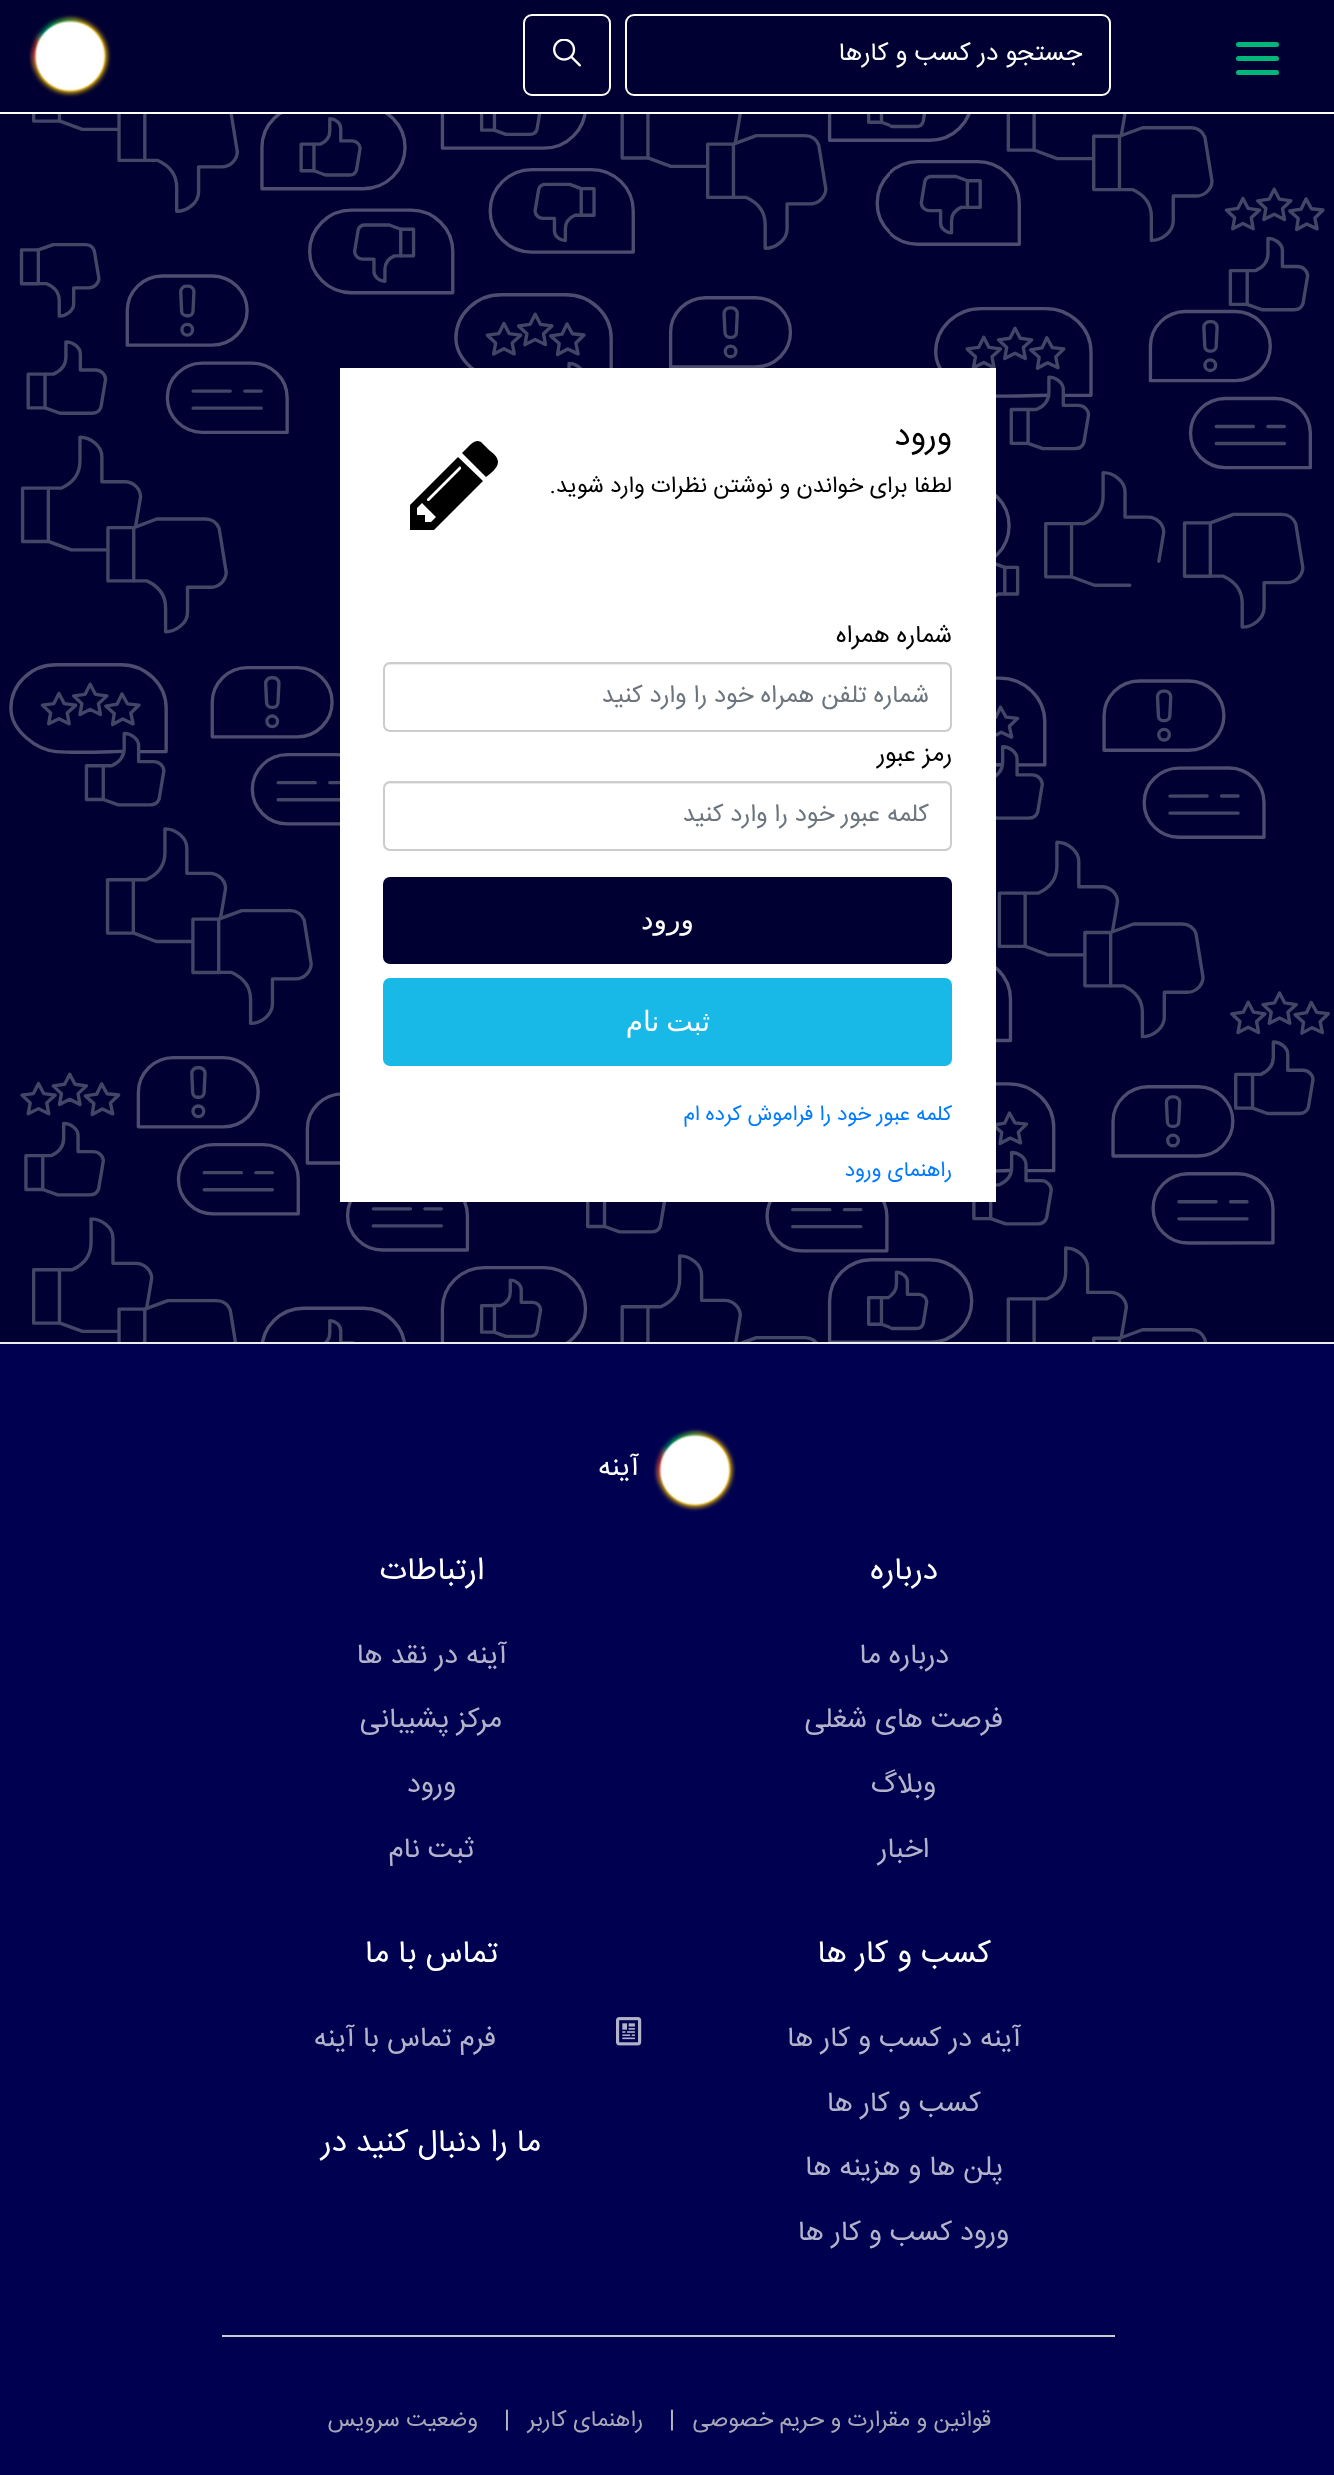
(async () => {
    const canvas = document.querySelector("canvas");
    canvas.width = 1334;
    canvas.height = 2475;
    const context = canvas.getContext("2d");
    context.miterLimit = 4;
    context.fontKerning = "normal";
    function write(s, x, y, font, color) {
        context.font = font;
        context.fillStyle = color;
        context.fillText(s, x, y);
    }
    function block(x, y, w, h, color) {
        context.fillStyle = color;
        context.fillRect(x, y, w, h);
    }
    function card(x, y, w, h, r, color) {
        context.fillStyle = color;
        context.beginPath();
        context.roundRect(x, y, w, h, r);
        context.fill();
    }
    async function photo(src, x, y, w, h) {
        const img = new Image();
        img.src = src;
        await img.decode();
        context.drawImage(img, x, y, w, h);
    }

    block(0, 0, 1334, 2475, "rgb(0, 0, 80)");
    block(0, 0, 1334, 112, "rgb(0, 0, 50)");
    block(0, 112, 1334, 2, "rgb(255, 255, 255)");
    await photo("media/1.png", 28, 14, 84, 84);
    card(1236, 42, 43, 5, 2.5, "rgb(0, 182, 122)");
    card(1236, 56, 43, 5, 2.5, "rgb(0, 182, 122)");
    card(1236, 70, 43, 5, 2.5, "rgb(0, 182, 122)");
    context.beginPath();
    context.roundRect(626, 15, 484, 80, 8);
    context.strokeStyle = "rgb(255, 255, 255)";
    context.lineWidth = 2;
    context.stroke();
    context.direction = "rtl";
    write("جستجو در کسب و کارها", 1082, 60, "25.25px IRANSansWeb", "rgb(255, 255, 255)");
    context.beginPath();
    context.roundRect(524, 15, 86, 80, 8);
    context.stroke();
    await photo("media/2.png", 553, 39, 28, 28);
    block(0, 114, 1334, 1228, "rgb(0, 0, 50)");
    block(0, 1342, 1334, 2, "rgb(237, 237, 237)");
    await photo("media/3.png", 9, 114, 1321, 1229);
    block(340, 368, 656, 834, "rgb(255, 255, 255)");
    write("ورود", 952, 445, "33px IRANSansWeb", "rgb(0, 0, 0)");
    write("لطفا برای خواندن و نوشتن نظرات وارد شوید.", 952, 492, "22.75px IRANSansWeb", "rgb(0, 0, 0)");
    context.beginPath();
    context.moveTo(431, 522);
    context.lineTo(436, 517);
    context.lineTo(422, 503);
    context.lineTo(417, 508);
    context.lineTo(417, 515);
    context.lineTo(425, 515);
    context.lineTo(425, 522);
    context.closePath();
    context.moveTo(461, 468);
    context.bezierCurveTo(461, 467, 460, 466, 459, 467);
    context.lineTo(427, 499);
    context.lineTo(427, 500);
    context.bezierCurveTo(427, 501, 428, 501, 429, 501);
    context.lineTo(461, 469);
    context.closePath();
    context.moveTo(458, 457);
    context.lineTo(483, 481);
    context.lineTo(434, 530);
    context.lineTo(410, 530);
    context.lineTo(410, 505);
    context.closePath();
    context.moveTo(498, 462);
    context.bezierCurveTo(498, 468, 490, 474, 486, 477);
    context.lineTo(462, 453);
    context.lineTo(469, 446);
    context.bezierCurveTo(472, 443, 476, 439, 481, 442);
    context.lineTo(489, 450);
    context.bezierCurveTo(493, 453, 498, 457, 498, 462);
    context.closePath();
    context.fill();
    write("شماره همراه", 952, 642, "24.5px IRANSansWeb", "rgb(0, 0, 0)");
    context.fillStyle = "rgb(236, 236, 236)";
    context.beginPath();
    context.moveTo(390, 665);
    context.lineTo(945, 665);
    context.bezierCurveTo(948, 665, 950, 667, 950, 670);
    context.lineTo(950, 668);
    context.bezierCurveTo(950, 665, 948, 663, 945, 663);
    context.lineTo(390, 663);
    context.bezierCurveTo(387, 663, 385, 665, 385, 668);
    context.lineTo(385, 670);
    context.bezierCurveTo(385, 667, 387, 665, 390, 665);
    context.closePath();
    context.fill();
    context.beginPath();
    context.roundRect(384, 663, 567, 68, 6);
    context.strokeStyle = "rgb(204, 204, 204)";
    context.stroke();
    write("شماره تلفن همراه خود را وارد کنید", 929, 702, "24.5px IRANSansWeb", "rgb(108, 117, 125)");
    write("رمز عبور", 952, 761, "24.5px IRANSansWeb", "rgb(0, 0, 0)");
    context.fillStyle = "rgb(236, 236, 236)";
    context.beginPath();
    context.moveTo(390, 784);
    context.lineTo(945, 784);
    context.bezierCurveTo(948, 784, 950, 786, 950, 789);
    context.lineTo(950, 787);
    context.bezierCurveTo(950, 784, 948, 782, 945, 782);
    context.lineTo(390, 782);
    context.bezierCurveTo(387, 782, 385, 784, 385, 787);
    context.lineTo(385, 789);
    context.bezierCurveTo(385, 786, 387, 784, 390, 784);
    context.closePath();
    context.fill();
    context.beginPath();
    context.roundRect(384, 782, 567, 68, 6);
    context.stroke();
    write("کلمه عبور خود را وارد کنید", 929, 821, "24.5px IRANSansWeb", "rgb(108, 117, 125)");
    card(383, 877, 569, 87, 7, "rgb(0, 0, 50)");
    write("ورود", 694, 929, "28px DejaVu Sans", "rgb(255, 255, 255)");
    card(383, 978, 569, 88, 7, "rgb(25, 185, 231)");
    context.wordSpacing = "-2px";
    write("ثبت نام", 710, 1031, "28px DejaVu Sans", "rgb(255, 255, 255)");
    context.wordSpacing = "0px";
    write("کلمه عبور خود را فراموش کرده ام", 952, 1120, "21px IRANSansWeb", "rgb(0, 123, 255)");
    write("راهنمای ورود", 952, 1176, "21px IRANSansWeb", "rgb(0, 123, 255)");
    await photo("media/4.png", 653, 1428, 83, 84);
    write("آینه", 639, 1475, "28px IRANSansWeb", "rgb(255, 255, 255)");
    write("درباره", 938, 1579, "31.5px IRANSansWeb", "rgb(255, 255, 255)");
    write("درباره ما", 949, 1663, "28px IRANSansWeb", "rgb(179, 179, 203)");
    write("فرصت های شغلی", 1003, 1727, "28px IRANSansWeb", "rgb(179, 179, 203)");
    write("وبلاگ", 936, 1792, "28px IRANSansWeb", "rgb(179, 179, 203)");
    write("اخبار", 929, 1857, "28px IRANSansWeb", "rgb(179, 179, 203)");
    write("ارتباطات", 484, 1579, "31.5px IRANSansWeb", "rgb(255, 255, 255)");
    write("آینه در نقد ها", 507, 1663, "28px IRANSansWeb", "rgb(179, 179, 203)");
    write("مرکز پشیبانی", 502, 1727, "28px IRANSansWeb", "rgb(179, 179, 203)");
    write("ورود", 456, 1792, "28px IRANSansWeb", "rgb(179, 179, 203)");
    write("ثبت نام", 474, 1857, "28px IRANSansWeb", "rgb(179, 179, 203)");
    write("کسب و کار ها", 991, 1962, "31.5px IRANSansWeb", "rgb(255, 255, 255)");
    write("آینه در کسب و کار ها", 1021, 2046, "28px IRANSansWeb", "rgb(179, 179, 203)");
    write("کسب و کار ها", 981, 2111, "28px IRANSansWeb", "rgb(179, 179, 203)");
    write("پلن ها و هزینه ها", 1003, 2175, "28px IRANSansWeb", "rgb(179, 179, 203)");
    write("ورود کسب و کار ها", 1009, 2240, "28px IRANSansWeb", "rgb(179, 179, 203)");
    write("تماس با ما", 498, 1962, "31.5px IRANSansWeb", "rgb(255, 255, 255)");
    await photo("media/5.png", 616, 2017, 26, 29);
    write("فرم تماس با آینه", 496, 2046, "28px IRANSansWeb", "rgb(179, 179, 203)");
    write("ما را دنبال کنید در", 541, 2151, "31.5px IRANSansWeb", "rgb(255, 255, 255)");
    block(222, 2335, 893, 2, "rgb(204, 204, 204)");
    write("قوانین و مقرارت و حریم خصوصی", 991, 2426, "22.75px IRANSansWeb", "rgb(167, 167, 183)");
    context.direction = "ltr";
    write("|", 669, 2426, "22.75px IRANSansWeb", "rgb(209, 209, 209)");
    context.direction = "rtl";
    write("راهنمای کاربر", 643, 2426, "22.75px IRANSansWeb", "rgb(167, 167, 183)");
    context.direction = "ltr";
    write("|", 504, 2426, "22.75px IRANSansWeb", "rgb(209, 209, 209)");
    context.direction = "rtl";
    write("وضعیت سرویس", 478, 2426, "22.75px IRANSansWeb", "rgb(167, 167, 183)");
})();
